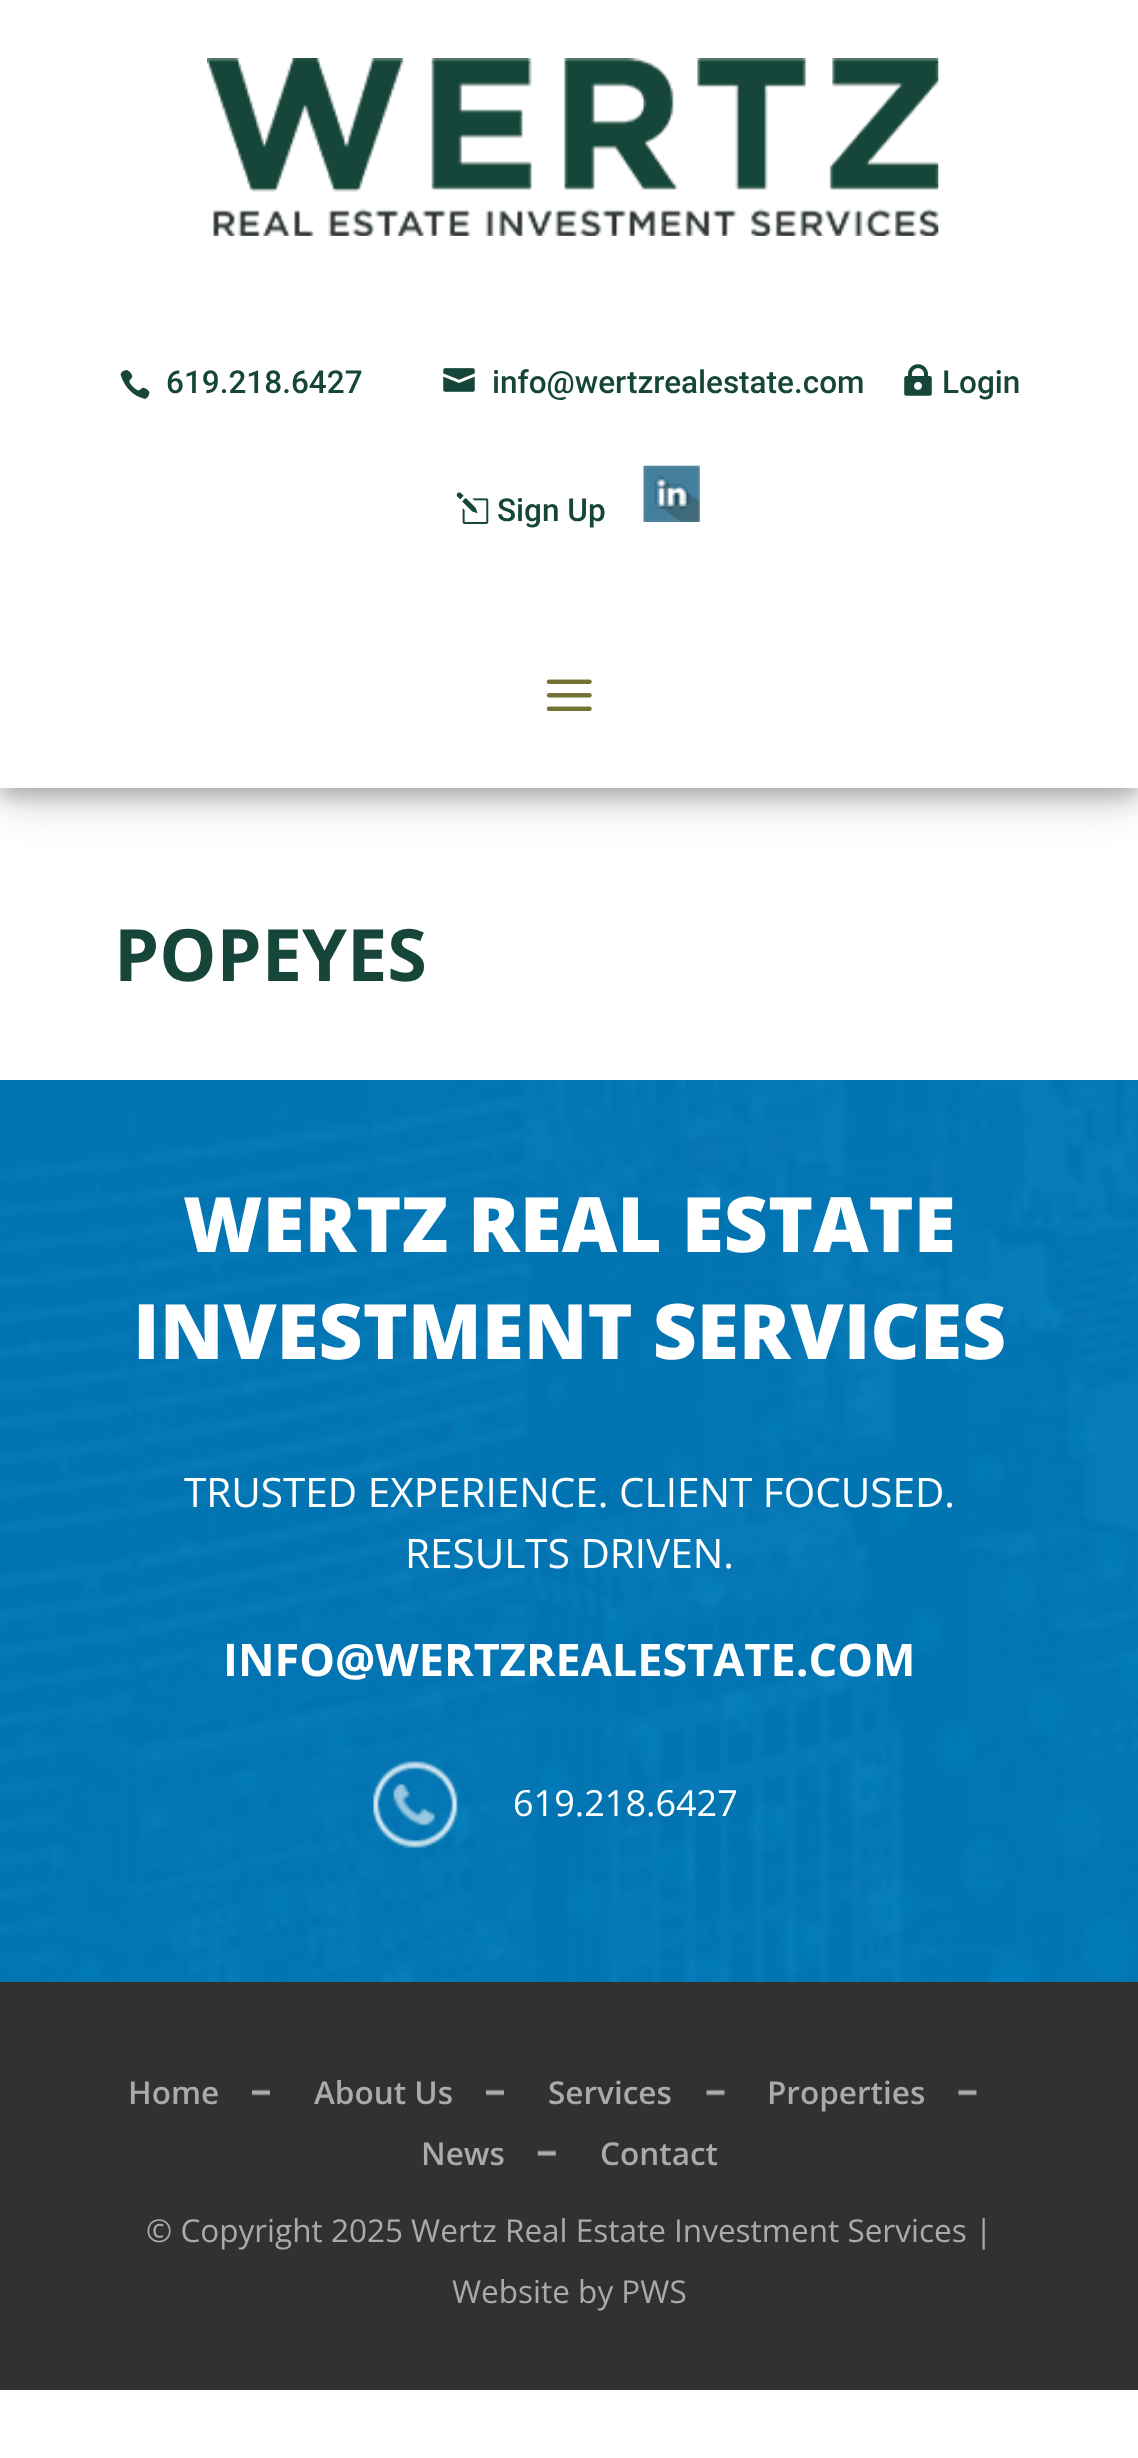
(async () => {
    const canvas = document.querySelector("canvas");
    canvas.width = 1138;
    canvas.height = 2458;
    const context = canvas.getContext("2d");
    context.miterLimit = 4;
    context.fontKerning = "normal";
    function write(s, x, y, font, color) {
        context.font = font;
        context.fillStyle = color;
        context.fillText(s, x, y);
    }
    function block(x, y, w, h, color) {
        context.fillStyle = color;
        context.fillRect(x, y, w, h);
    }
    async function photo(src, x, y, w, h) {
        const img = new Image();
        img.src = src;
        await img.decode();
        context.drawImage(img, x, y, w, h);
    }

    block(0, 0, 1138, 2458, "rgb(255, 255, 255)");
    context.fillStyle = "rgba(0, 0, 0, 0.19)";
    context.filter = "blur(22.5px)";
    context.beginPath();
    context.rect(0, 14, 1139, 787);
    context.fill();
    context.filter = "none";
    context.fillStyle = "rgba(0, 0, 0, 0.2)";
    context.filter = "blur(9px)";
    context.beginPath();
    context.rect(0, 9, 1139, 788);
    context.fill();
    context.filter = "none";
    block(0, 0, 1138, 788, "rgb(255, 255, 255)");
    await photo("media/1.png", 207, 58, 732, 178);
    await photo("media/2.png", 120, 370, 30, 29);
    write("619.218.6427", 166, 393, "500 31.5px Roboto", "rgb(22, 70, 57)");
    await photo("media/3.png", 443, 368, 32, 24);
    write("info@wertzrealestate.com", 492, 393, "500 31.5px Roboto", "rgb(22, 70, 57)");
    await photo("media/4.png", 904, 364, 28, 32);
    write("Login", 942, 393, "500 31.5px Roboto", "rgb(22, 70, 57)");
    await photo("media/5.png", 456, 492, 33, 32);
    write("Sign Up", 497, 521, "500 31.5px Roboto", "rgb(22, 70, 57)");
    await photo("media/6.png", 643, 465, 57, 57);
    await photo("media/7.png", 546, 679, 46, 32);
    write("POPEYES", 114, 981, "bold 72px Open Sans", "rgb(22, 70, 57)");
    await photo("media/8.png", 0, 1080, 1138, 902);
    write("WERTZ REAL ESTATE", 183, 1252, "800 76.5px Open Sans", "rgb(255, 255, 255)");
    write("INVESTMENT SERVICES", 133, 1359, "800 76.5px Open Sans", "rgb(255, 255, 255)");
    write("TRUSTED EXPERIENCE. CLIENT FOCUSED.", 184, 1507, "40.5px Open Sans", "rgb(255, 255, 255)");
    write("RESULTS DRIVEN.", 405, 1568, "40.5px Open Sans", "rgb(255, 255, 255)");
    write("INFO@WERTZREALESTATE.COM", 223, 1676, "bold 45px Open Sans", "rgb(255, 255, 255)");
    await photo("media/9.png", 373, 1761, 85, 87);
    write("619.218.6427", 513, 1816, "36px Open Sans", "rgb(255, 255, 255)");
    block(0, 1982, 1138, 408, "rgb(48, 49, 49)");
    await photo("media/10.png", 252, 2089, 18, 7);
    write("Home", 128, 2104, "600 31.5px Open Sans", "rgb(170, 170, 170)");
    await photo("media/10.png", 486, 2089, 18, 7);
    write("About Us", 314, 2104, "600 31.5px Open Sans", "rgb(170, 170, 170)");
    await photo("media/11.png", 706, 2089, 19, 7);
    write("Services", 548, 2104, "600 31.5px Open Sans", "rgb(170, 170, 170)");
    await photo("media/11.png", 958, 2089, 19, 7);
    write("Properties", 767, 2104, "600 31.5px Open Sans", "rgb(170, 170, 170)");
    await photo("media/12.png", 537, 2150, 19, 7);
    write("News", 421, 2165, "600 31.5px Open Sans", "rgb(170, 170, 170)");
    write("Contact", 600, 2165, "600 31.5px Open Sans", "rgb(170, 170, 170)");
    write("© Copyright 2025 Wertz Real Estate Investment Services |", 146, 2242, "31.5px Open Sans", "rgb(170, 170, 170)");
    write("Website by PWS", 452, 2303, "31.5px Open Sans", "rgb(170, 170, 170)");
})();
